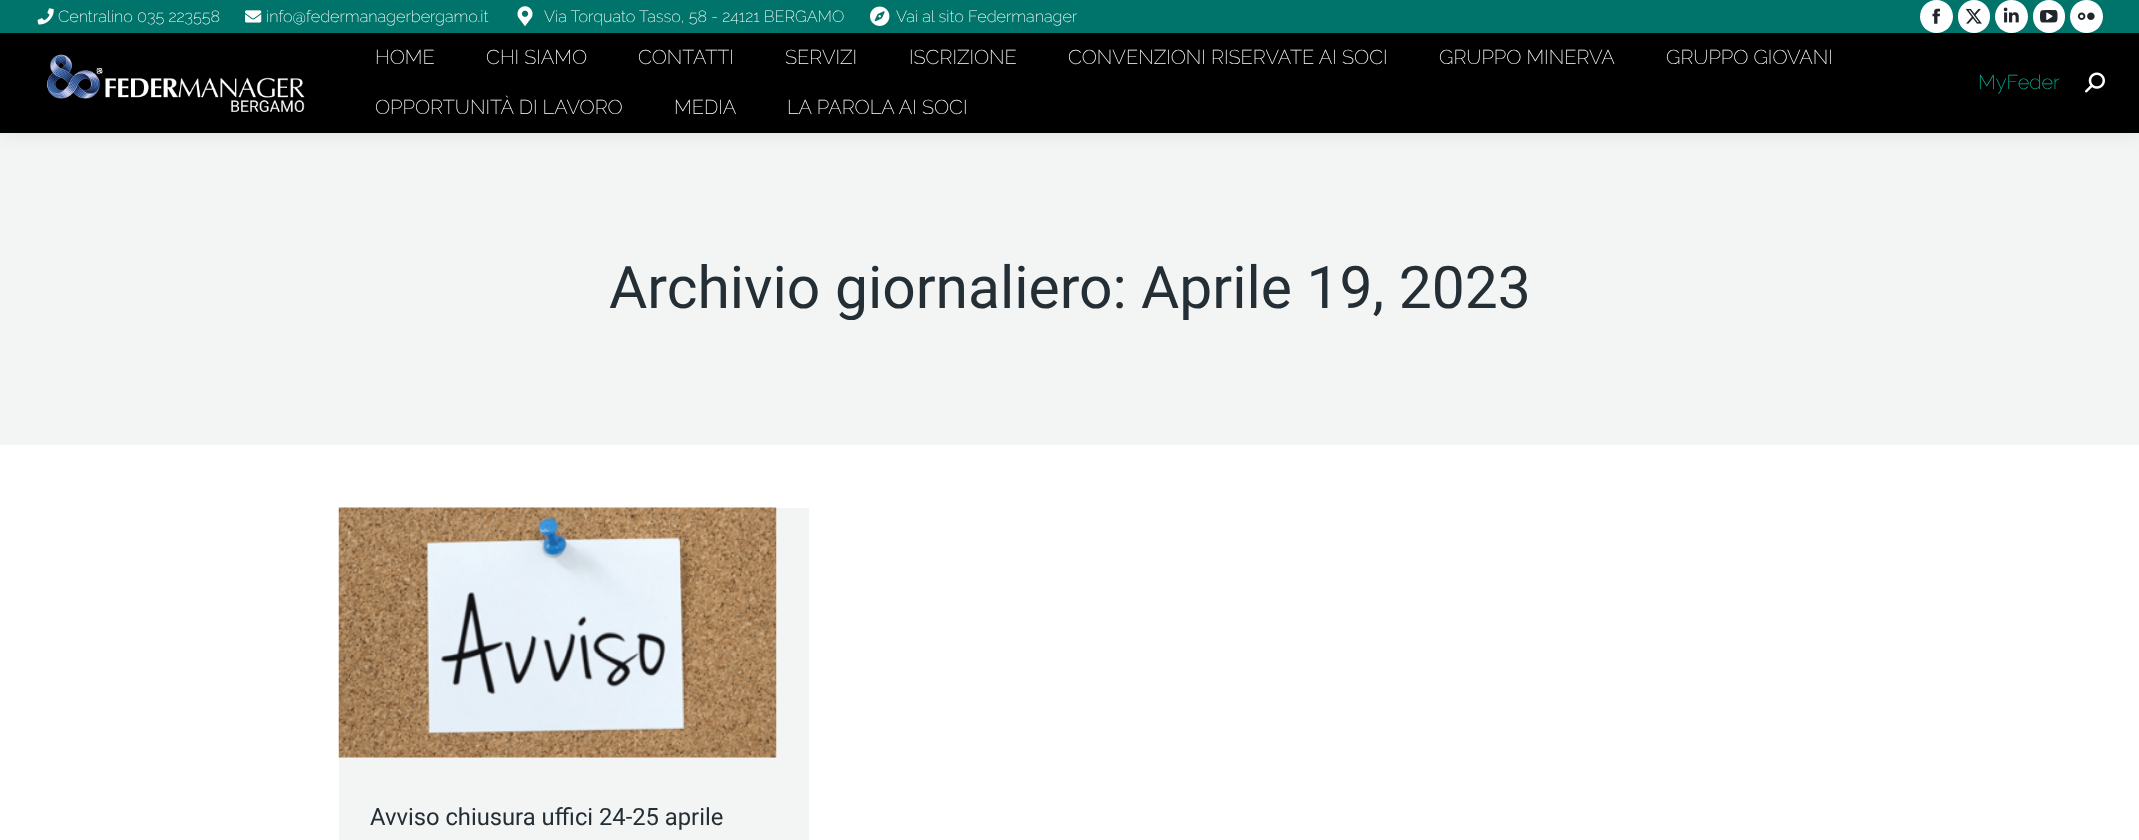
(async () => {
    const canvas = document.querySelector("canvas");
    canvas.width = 2139;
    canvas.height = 840;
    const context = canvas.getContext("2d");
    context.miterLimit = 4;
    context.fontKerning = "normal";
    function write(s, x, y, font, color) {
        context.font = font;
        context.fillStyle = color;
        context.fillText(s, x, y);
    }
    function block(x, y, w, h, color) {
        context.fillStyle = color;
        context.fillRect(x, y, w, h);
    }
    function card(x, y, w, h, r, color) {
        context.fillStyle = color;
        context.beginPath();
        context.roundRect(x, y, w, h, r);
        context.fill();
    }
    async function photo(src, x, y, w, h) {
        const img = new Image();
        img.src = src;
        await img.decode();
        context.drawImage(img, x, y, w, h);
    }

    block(0, 0, 2139, 840, "rgb(255, 255, 255)");
    block(0, 133, 2139, 312, "rgb(243, 244, 244)");
    context.fillStyle = "rgba(0, 0, 0, 0.07)";
    context.filter = "blur(9.5px)";
    context.beginPath();
    context.rect(-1, -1, 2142, 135);
    context.fill();
    context.filter = "none";
    block(0, 33, 2139, 100, "rgb(0, 0, 0)");
    block(0, 0, 2139, 33, "rgb(0, 116, 107)");
    await photo("media/1.png", 37, 8, 17, 17);
    write("Centralino 035 223558", 58, 22, "200 16.25px Raleway", "rgb(255, 255, 255)");
    await photo("media/2.png", 245, 10, 17, 13);
    write("info@federmanagerbergamo.it", 266, 22, "200 16.25px Raleway", "rgb(255, 255, 255)");
    await photo("media/3.png", 517, 6, 16, 21);
    write("Via Torquato Tasso, 58 - 24121 BERGAMO", 544, 22, "200 16.25px Raleway", "rgb(255, 255, 255)");
    await photo("media/4.png", 870, 6, 20, 20);
    write("Vai al sito Federmanager", 896, 22, "200 16.25px Raleway", "rgb(255, 255, 255)");
    context.beginPath();
    context.arc(1936.5, 16.5, 16.5, 0, Math.PI * 2);
    context.fill();
    await photo("media/5.png", 1932, 8, 8, 16);
    card(1958, 0, 32, 33, 16, "rgb(255, 255, 255)");
    await photo("media/6.png", 1965, 8, 17, 16);
    context.beginPath();
    context.arc(2011.5, 16.5, 16.5, 0, Math.PI * 2);
    context.fill();
    await photo("media/7.png", 2003, 7, 16, 16);
    card(2033, 0, 32, 33, 16, "rgb(255, 255, 255)");
    await photo("media/8.png", 2040, 10, 18, 13);
    context.beginPath();
    context.arc(2086.5, 16.5, 16.5, 0, Math.PI * 2);
    context.fill();
    await photo("media/9.png", 2077, 12, 18, 8);
    await photo("media/10.png", 46, 54, 259, 58);
    write("HOME", 375, 64, "200 20px Raleway", "rgb(255, 255, 255)");
    write("CHI SIAMO", 486, 64, "200 20px Raleway", "rgb(255, 255, 255)");
    write("CONTATTI", 638, 64, "200 20px Raleway", "rgb(255, 255, 255)");
    write("SERVIZI", 785, 64, "200 20px Raleway", "rgb(255, 255, 255)");
    write("ISCRIZIONE", 909, 64, "200 20px Raleway", "rgb(255, 255, 255)");
    write("CONVENZIONI RISERVATE AI SOCI", 1068, 64, "200 20px Raleway", "rgb(255, 255, 255)");
    write("GRUPPO MINERVA", 1439, 64, "200 20px Raleway", "rgb(255, 255, 255)");
    write("GRUPPO GIOVANI", 1666, 64, "200 20px Raleway", "rgb(255, 255, 255)");
    write("OPPORTUNITÀ DI LAVORO", 375, 114, "200 20px Raleway", "rgb(255, 255, 255)");
    write("MEDIA", 674, 114, "200 20px Raleway", "rgb(255, 255, 255)");
    write("LA PAROLA AI SOCI", 787, 114, "200 20px Raleway", "rgb(255, 255, 255)");
    write("MyFeder", 1978, 89, "200 20px Raleway", "rgb(1, 190, 157)");
    await photo("media/11.png", 2085, 72, 20, 21);
    context.save();
    context.beginPath();
    context.rect(609, 254, 922, 66);
    context.clip();
    write("Archivio giornaliero:", 609, 308, "58.75px Roboto", "rgb(36, 46, 53)");
    context.restore();
    write("Aprile 19, 2023", 1141, 308, "58.75px Roboto", "rgb(36, 46, 53)");
    block(339, 508, 470, 332, "rgb(243, 244, 244)");
    await photo("media/12.png", 338, 507, 439, 251);
    write("Avviso chiusura uffici 24-25 aprile", 370, 825, "23.75px Roboto", "rgb(36, 46, 53)");
})();
